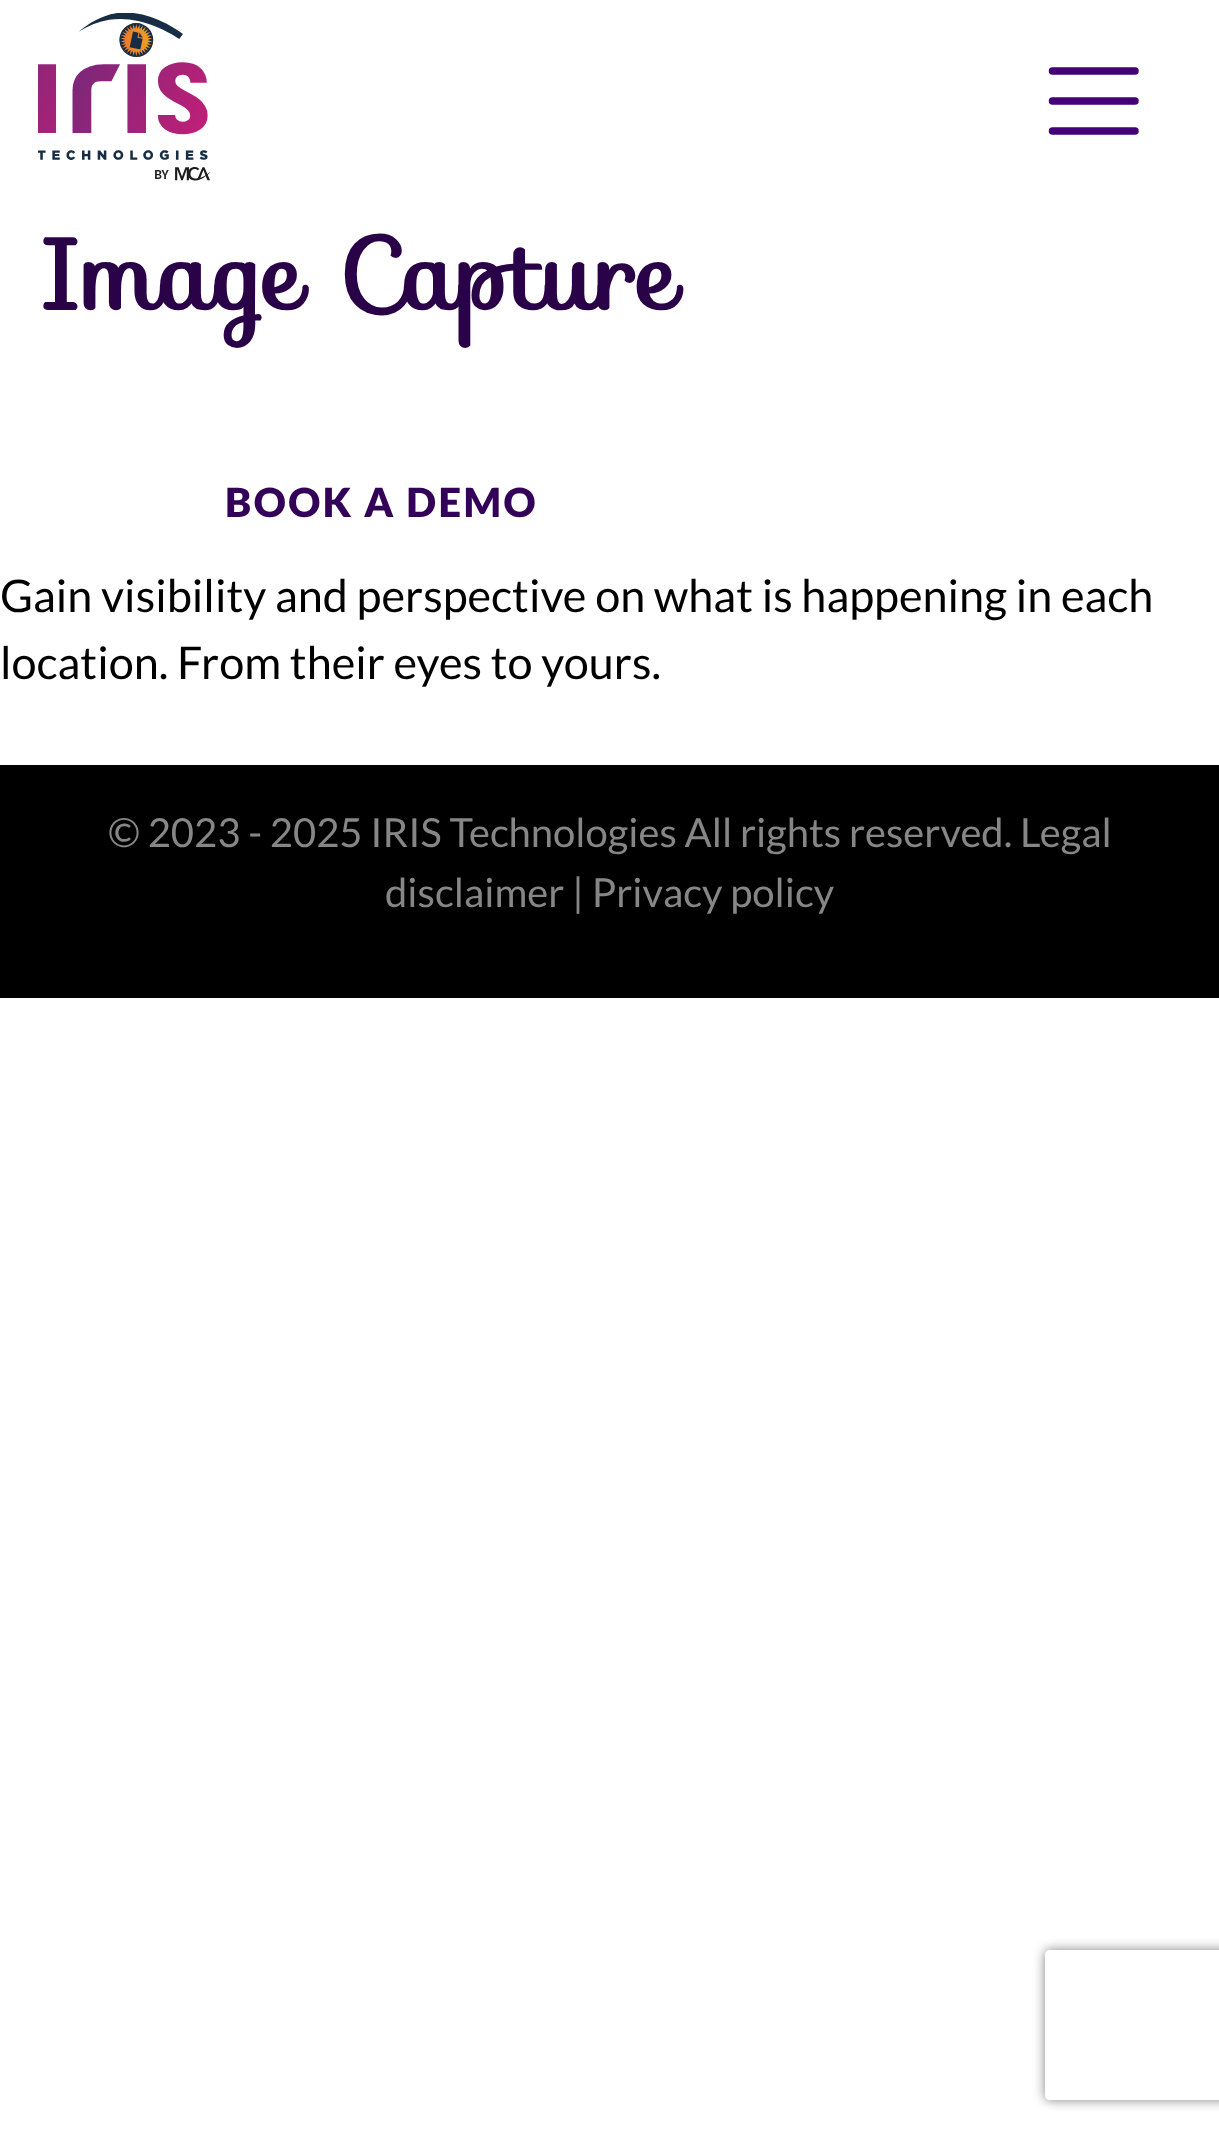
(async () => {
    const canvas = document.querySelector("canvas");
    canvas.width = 1219;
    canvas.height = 2135;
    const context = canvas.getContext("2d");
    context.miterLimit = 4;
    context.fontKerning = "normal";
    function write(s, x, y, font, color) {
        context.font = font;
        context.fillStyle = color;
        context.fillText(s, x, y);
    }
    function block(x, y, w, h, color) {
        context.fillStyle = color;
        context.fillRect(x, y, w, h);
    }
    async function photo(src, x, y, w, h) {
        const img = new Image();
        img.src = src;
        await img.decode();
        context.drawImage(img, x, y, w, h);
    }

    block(0, 0, 1219, 2135, "rgb(255, 255, 255)");
    await photo("media/1.png", 38, 13, 173, 168);
    context.beginPath();
    context.moveTo(1052.5, 71);
    context.lineTo(1135, 71);
    context.moveTo(1052.5, 101);
    context.lineTo(1135, 101);
    context.moveTo(1052.5, 131);
    context.lineTo(1135, 131);
    context.strokeStyle = "rgb(68, 0, 119)";
    context.lineWidth = 7.5;
    context.lineCap = "round";
    context.stroke();
    write("Image Capture", 38, 310, "bold 100px Sofia", "rgb(42, 2, 72)");
    context.letterSpacing = "2.5px";
    write("BOOK A DEMO", 225, 517, "900 40px Lato", "rgb(51, 2, 88)");
    context.letterSpacing = "0px";
    write("Gain visibility and perspective on what is happening in each", 0, 612, "45px Lato", "rgb(0, 0, 0)");
    write("location. From their eyes to yours.", 0, 679, "45px Lato", "rgb(0, 0, 0)");
    block(0, 765, 1219, 233, "rgb(0, 0, 0)");
    write("© 2023 - 2025 IRIS Technologies All rights reserved. Legal", 108, 847, "40px Lato", "rgb(134, 134, 134)");
    write("disclaimer | Privacy policy", 385, 907, "40px Lato", "rgb(134, 134, 134)");
    context.save();
    context.beginPath();
    context.moveTo(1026, 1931);
    context.lineTo(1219, 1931);
    context.lineTo(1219, 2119);
    context.lineTo(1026, 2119);
    context.closePath();
    context.moveTo(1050, 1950);
    context.lineTo(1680, 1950);
    context.bezierCurveTo(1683, 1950, 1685, 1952, 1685, 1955);
    context.lineTo(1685, 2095);
    context.bezierCurveTo(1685, 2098, 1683, 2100, 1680, 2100);
    context.lineTo(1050, 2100);
    context.bezierCurveTo(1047, 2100, 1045, 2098, 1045, 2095);
    context.lineTo(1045, 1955);
    context.bezierCurveTo(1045, 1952, 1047, 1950, 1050, 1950);
    context.closePath();
    context.clip("evenodd");
    context.fillStyle = "rgb(128, 128, 128)";
    context.filter = "blur(6px)";
    context.beginPath();
    context.roundRect(1045, 1950, 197, 150, 5);
    context.fill();
    context.filter = "none";
    context.restore();
})();
